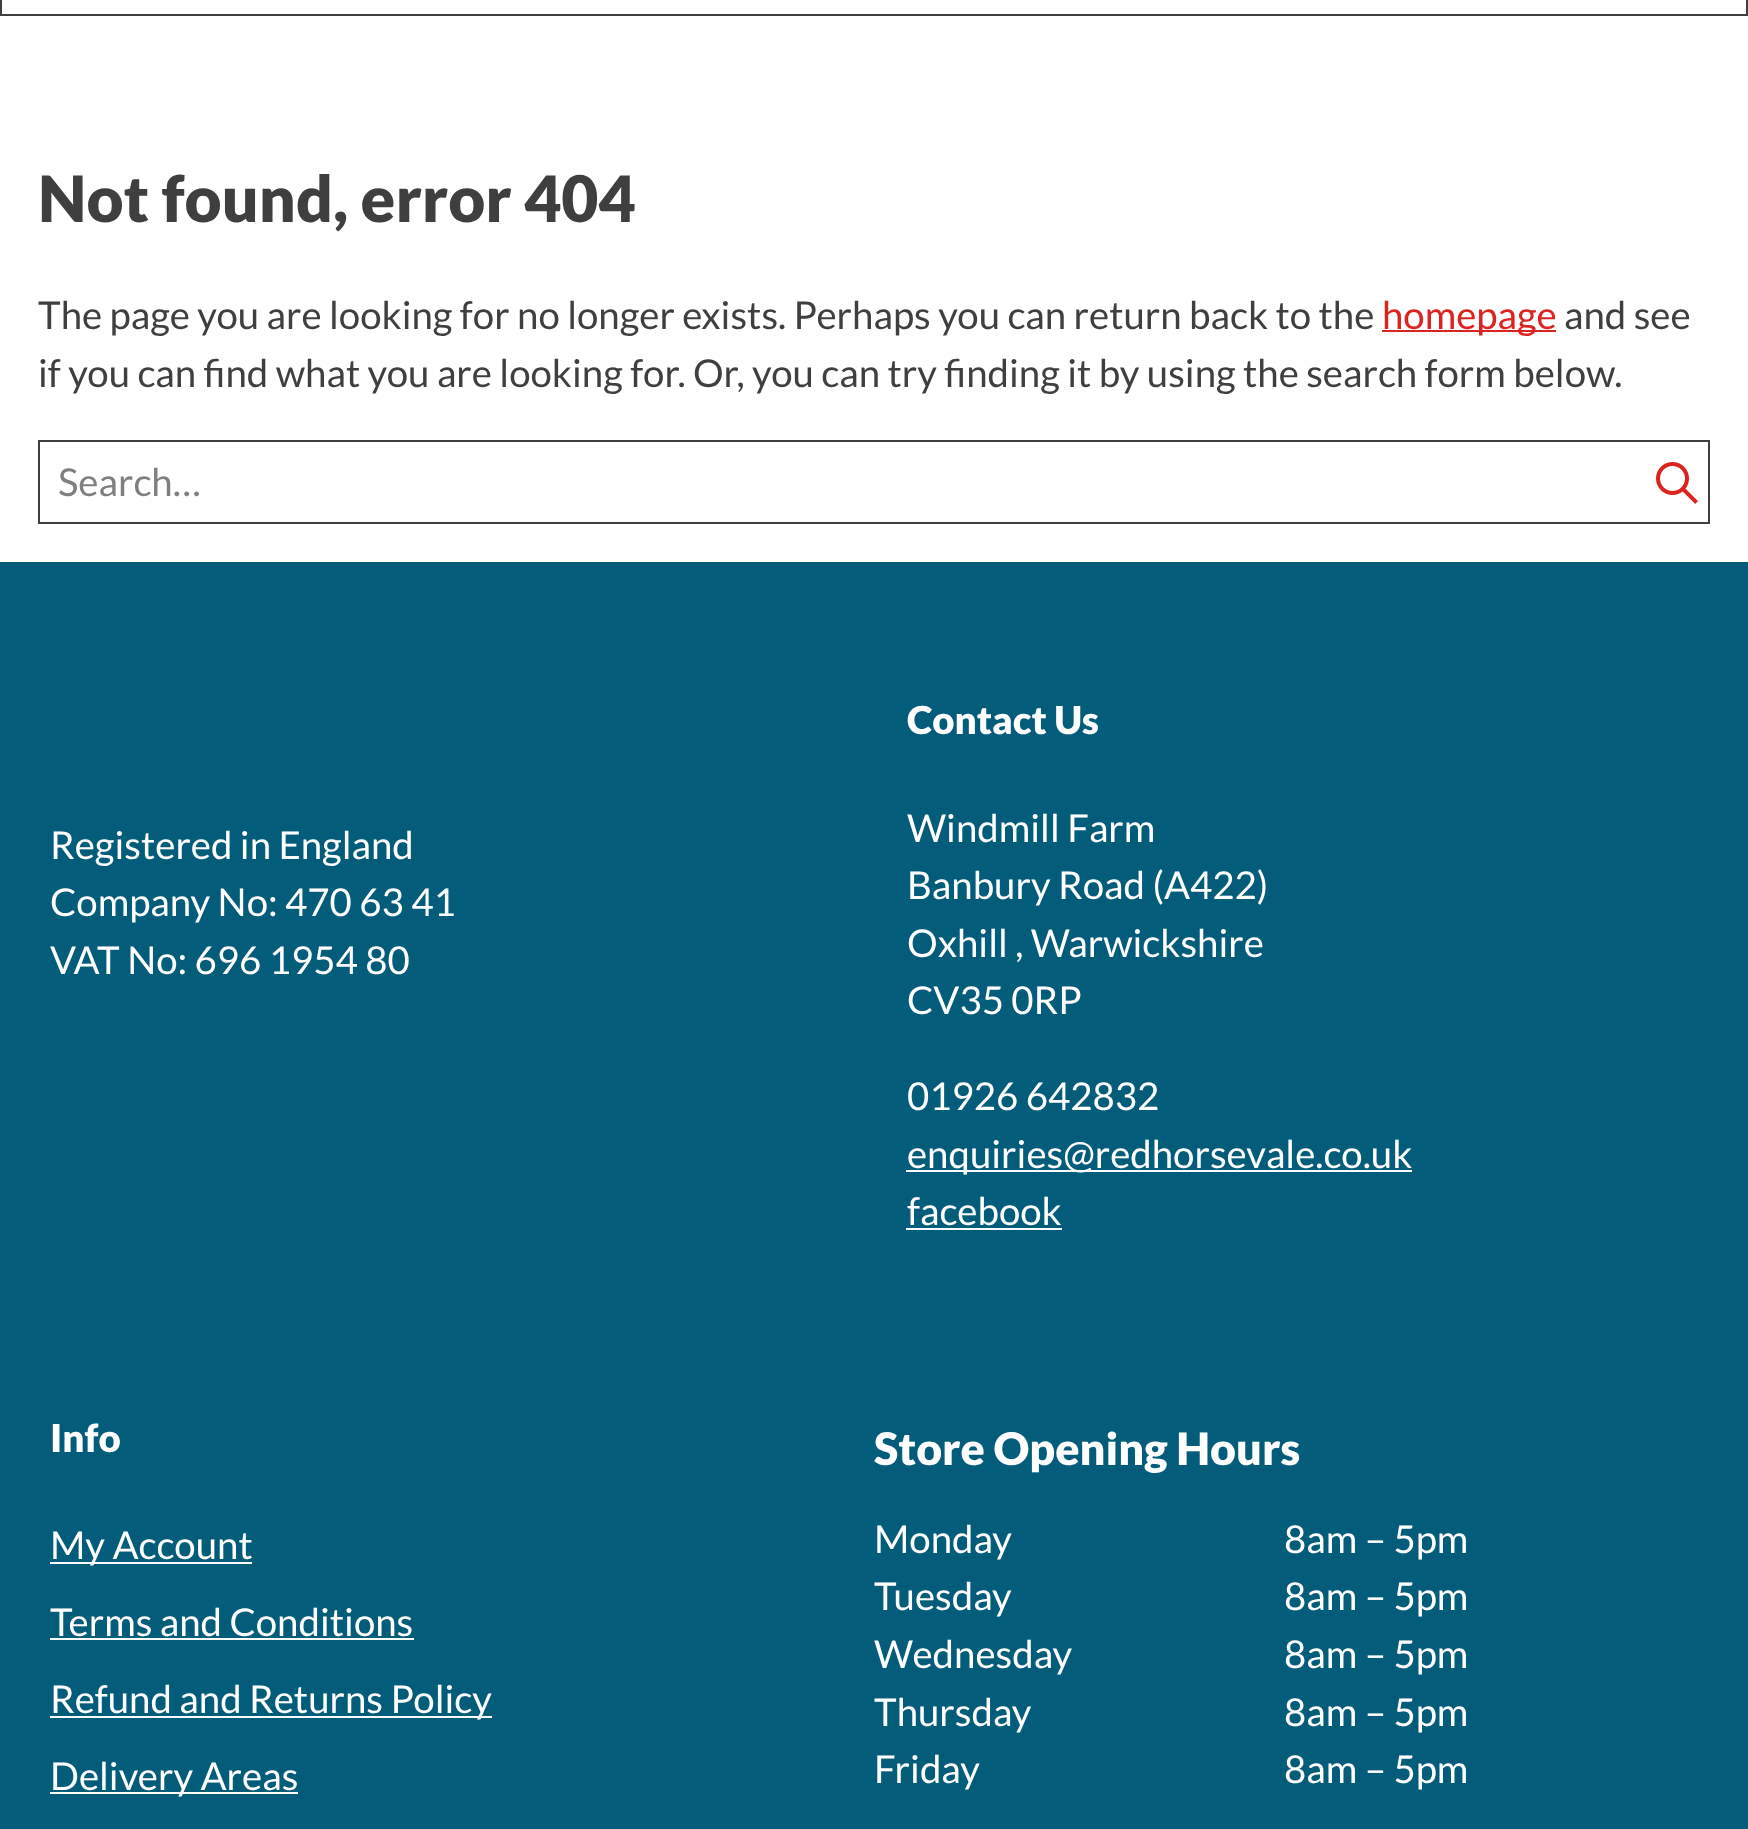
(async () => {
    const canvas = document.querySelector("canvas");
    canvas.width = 1748;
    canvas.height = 1829;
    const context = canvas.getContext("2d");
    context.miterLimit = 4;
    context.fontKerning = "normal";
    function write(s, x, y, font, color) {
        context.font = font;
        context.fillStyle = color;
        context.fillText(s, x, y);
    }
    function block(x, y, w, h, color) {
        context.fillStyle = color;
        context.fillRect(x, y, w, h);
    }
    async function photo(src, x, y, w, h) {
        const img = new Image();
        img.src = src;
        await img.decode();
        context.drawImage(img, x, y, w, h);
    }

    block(0, 0, 1748, 1829, "rgb(255, 255, 255)");
    context.strokeStyle = "rgb(63, 63, 63)";
    context.lineWidth = 2;
    context.strokeRect(1, -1, 1746, 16);
    write("Not found, error 404", 38, 222, "900 64px Lato", "rgb(63, 63, 63)");
    write("The page you are looking for no longer exists. Perhaps you can return back to the", 38, 329, "38.4px Lato", "rgb(63, 63, 63)");
    block(1382, 330, 174, 2, "rgb(220, 35, 32)");
    write("homepage", 1382, 329, "38.4px Lato", "rgb(220, 35, 32)");
    write("and see", 1564, 329, "38.4px Lato", "rgb(63, 63, 63)");
    write("if you can find what you are looking for. Or, you can try finding it by using the search form below.", 38, 387, "38.4px Lato", "rgb(63, 63, 63)");
    context.strokeRect(39, 441, 1670, 82);
    write("Search…", 58, 496, "38.4px Lato", "rgb(127, 127, 127)");
    await photo("media/1.png", 1656, 462, 42, 42);
    block(0, 562, 1748, 1267, "rgb(2, 92, 122)");
    write("Registered in England", 50, 859, "38.4px Lato", "rgb(255, 255, 255)");
    write("Company No: 470 63 41", 50, 916, "38.4px Lato", "rgb(255, 255, 255)");
    write("VAT No: 696 1954 80", 50, 974, "38.4px Lato", "rgb(255, 255, 255)");
    write("Contact Us", 907, 734, "900 38.4px Lato", "rgb(255, 255, 255)");
    write("Windmill Farm", 907, 842, "38.4px Lato", "rgb(255, 255, 255)");
    write("Banbury Road (A422)", 907, 899, "38.4px Lato", "rgb(255, 255, 255)");
    write("Oxhill , Warwickshire", 907, 957, "38.4px Lato", "rgb(255, 255, 255)");
    write("CV35 0RP", 907, 1014, "38.4px Lato", "rgb(255, 255, 255)");
    write("01926 642832", 907, 1110, "38.4px Lato", "rgb(255, 255, 255)");
    block(906, 1170, 506, 2, "rgb(255, 255, 255)");
    write("enquiries@redhorsevale.co.uk", 907, 1168, "38.4px Lato", "rgb(255, 255, 255)");
    write("facebook", 907, 1225, "38.4px Lato", "rgb(255, 255, 255)");
    block(906, 1228, 156, 2, "rgb(255, 255, 255)");
    write("Info", 50, 1452, "900 38.4px Lato", "rgb(255, 255, 255)");
    block(50, 1562, 202, 2, "rgb(255, 255, 255)");
    write("My Account", 50, 1559, "38.4px Lato", "rgb(255, 255, 255)");
    write("Terms and Conditions", 50, 1636, "38.4px Lato", "rgb(255, 255, 255)");
    block(50, 1638, 364, 2, "rgb(255, 255, 255)");
    block(50, 1716, 442, 2, "rgb(255, 255, 255)");
    write("Refund and Returns Policy", 50, 1713, "38.4px Lato", "rgb(255, 255, 255)");
    block(50, 1792, 248, 2, "rgb(255, 255, 255)");
    write("Delivery Areas", 50, 1790, "38.4px Lato", "rgb(255, 255, 255)");
    write("Store Opening Hours", 874, 1465, "900 44.75px Lato", "rgb(255, 255, 255)");
    write("Monday", 874, 1553, "38.4px Lato", "rgb(255, 255, 255)");
    write("8am – 5pm", 1284, 1553, "38.4px Lato", "rgb(255, 255, 255)");
    write("Tuesday", 874, 1610, "38.4px Lato", "rgb(255, 255, 255)");
    write("8am – 5pm", 1284, 1610, "38.4px Lato", "rgb(255, 255, 255)");
    write("Wednesday", 874, 1668, "38.4px Lato", "rgb(255, 255, 255)");
    write("8am – 5pm", 1284, 1668, "38.4px Lato", "rgb(255, 255, 255)");
    write("Thursday", 874, 1726, "38.4px Lato", "rgb(255, 255, 255)");
    write("8am – 5pm", 1284, 1726, "38.4px Lato", "rgb(255, 255, 255)");
    write("Friday", 874, 1783, "38.4px Lato", "rgb(255, 255, 255)");
    write("8am – 5pm", 1284, 1783, "38.4px Lato", "rgb(255, 255, 255)");
})();
